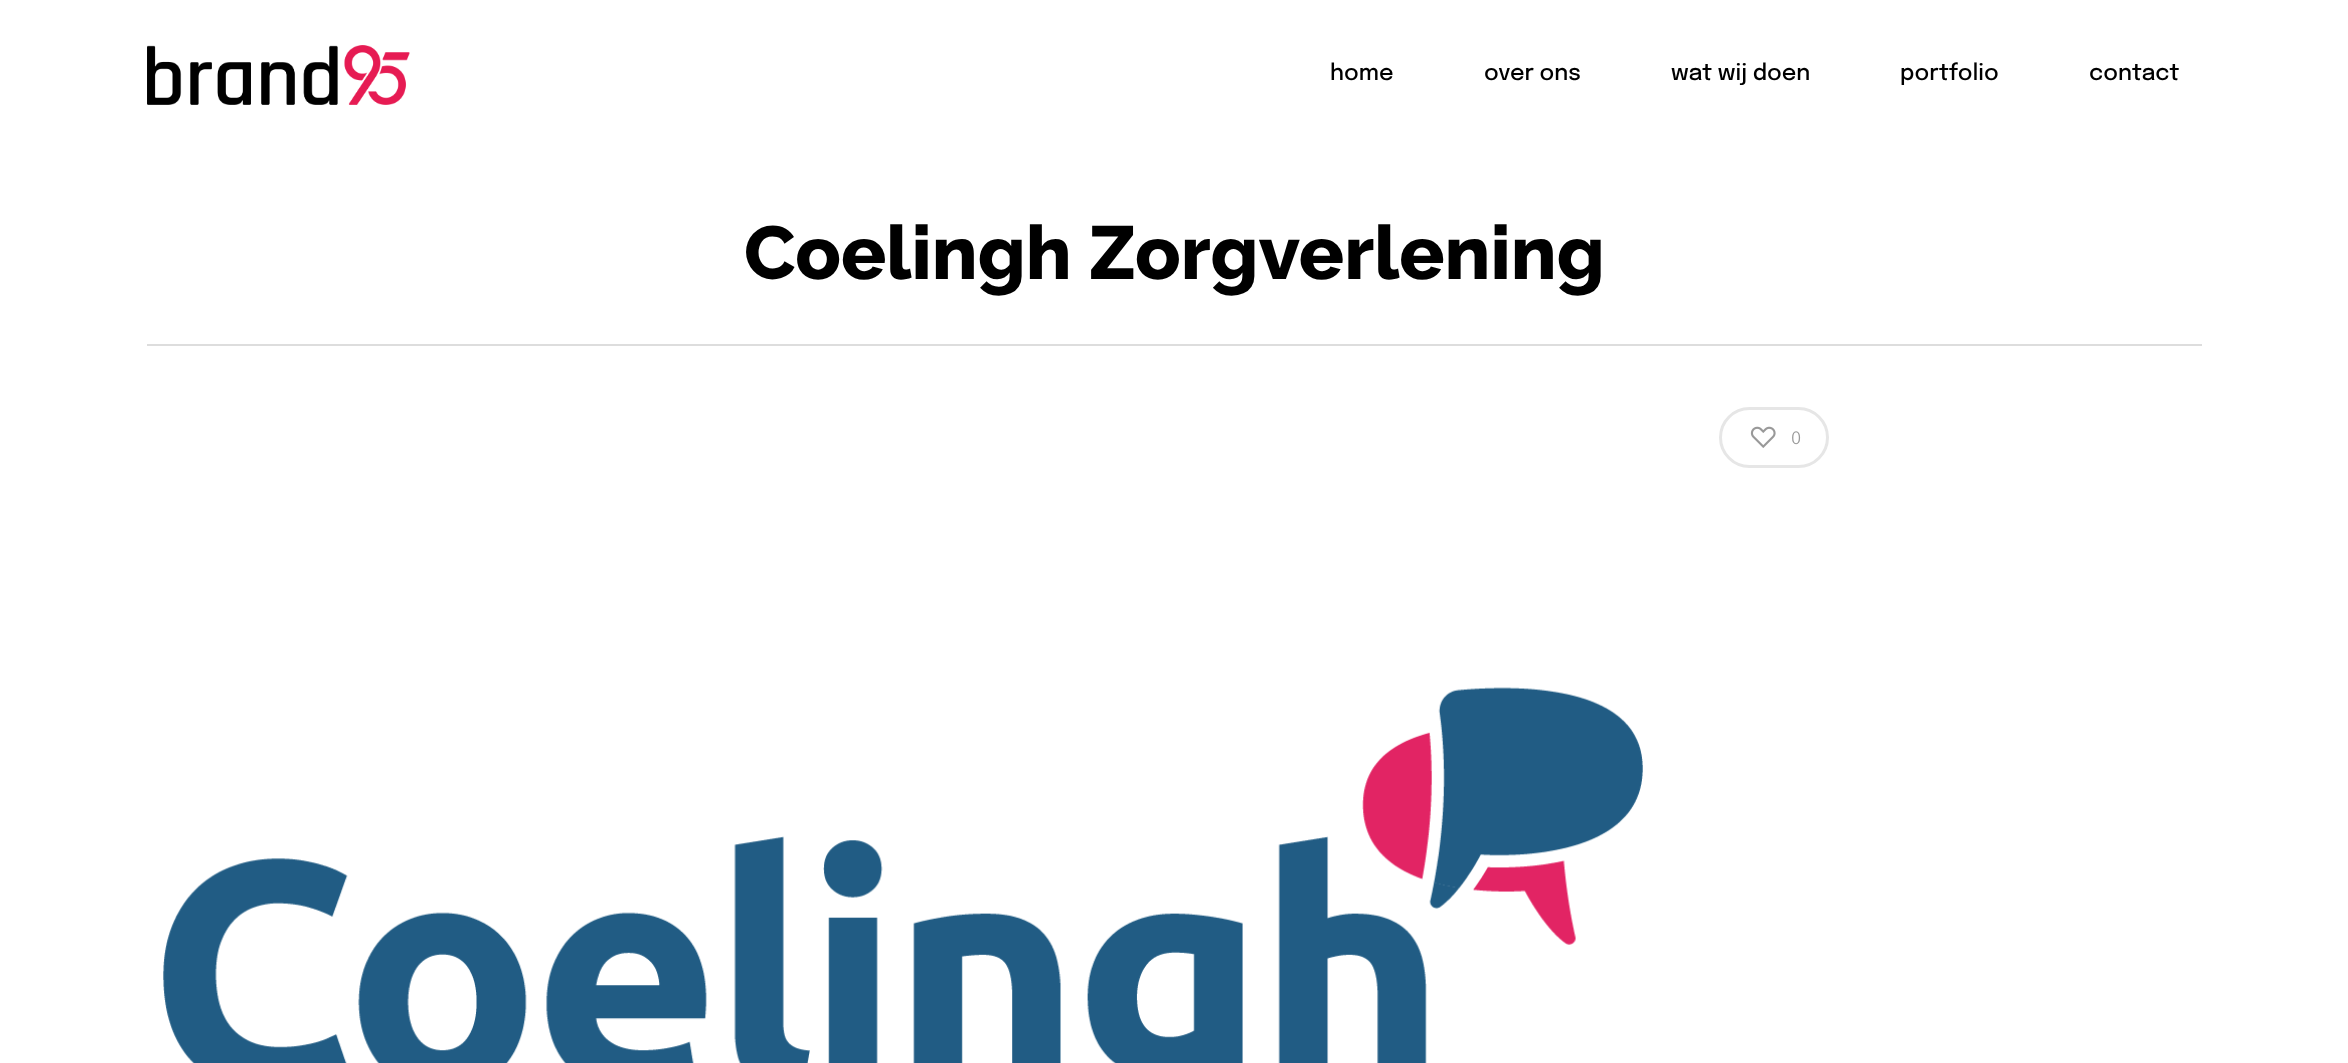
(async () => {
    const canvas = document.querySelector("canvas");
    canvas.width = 2348;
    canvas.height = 1063;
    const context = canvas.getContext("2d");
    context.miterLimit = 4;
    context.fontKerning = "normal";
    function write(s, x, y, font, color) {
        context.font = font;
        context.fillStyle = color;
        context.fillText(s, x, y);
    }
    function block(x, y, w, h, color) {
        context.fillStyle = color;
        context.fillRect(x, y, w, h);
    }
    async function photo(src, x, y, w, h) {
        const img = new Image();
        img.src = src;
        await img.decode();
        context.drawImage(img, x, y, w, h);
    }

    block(0, 0, 2348, 1063, "rgb(255, 255, 255)");
    await photo("media/1.png", 147, 45, 263, 60);
    write("home", 1330, 80, "500 22.5px Epilogue", "rgb(0, 0, 0)");
    write("over ons", 1484, 80, "500 22.5px Epilogue", "rgb(0, 0, 0)");
    write("wat wij doen", 1671, 80, "500 22.5px Epilogue", "rgb(0, 0, 0)");
    write("portfolio", 1900, 80, "500 22.5px Epilogue", "rgb(0, 0, 0)");
    write("contact", 2089, 80, "500 22.5px Epilogue", "rgb(0, 0, 0)");
    block(147, 344, 2055, 2, "rgb(221, 221, 221)");
    write("Coelingh Zorgverlening", 744, 279, "100 75px Raleway", "rgb(0, 0, 0)");
    context.beginPath();
    context.roundRect(1720.5, 408.5, 107, 58, 29);
    context.strokeStyle = "rgb(230, 230, 230)";
    context.lineWidth = 3;
    context.stroke();
    await photo("media/2.png", 1750, 426, 26, 22);
    write("0", 1791, 444, "300 18px Ubuntu", "rgb(153, 153, 153)");
    await photo("media/3.png", 163, 687, 1480, 376);
})();
